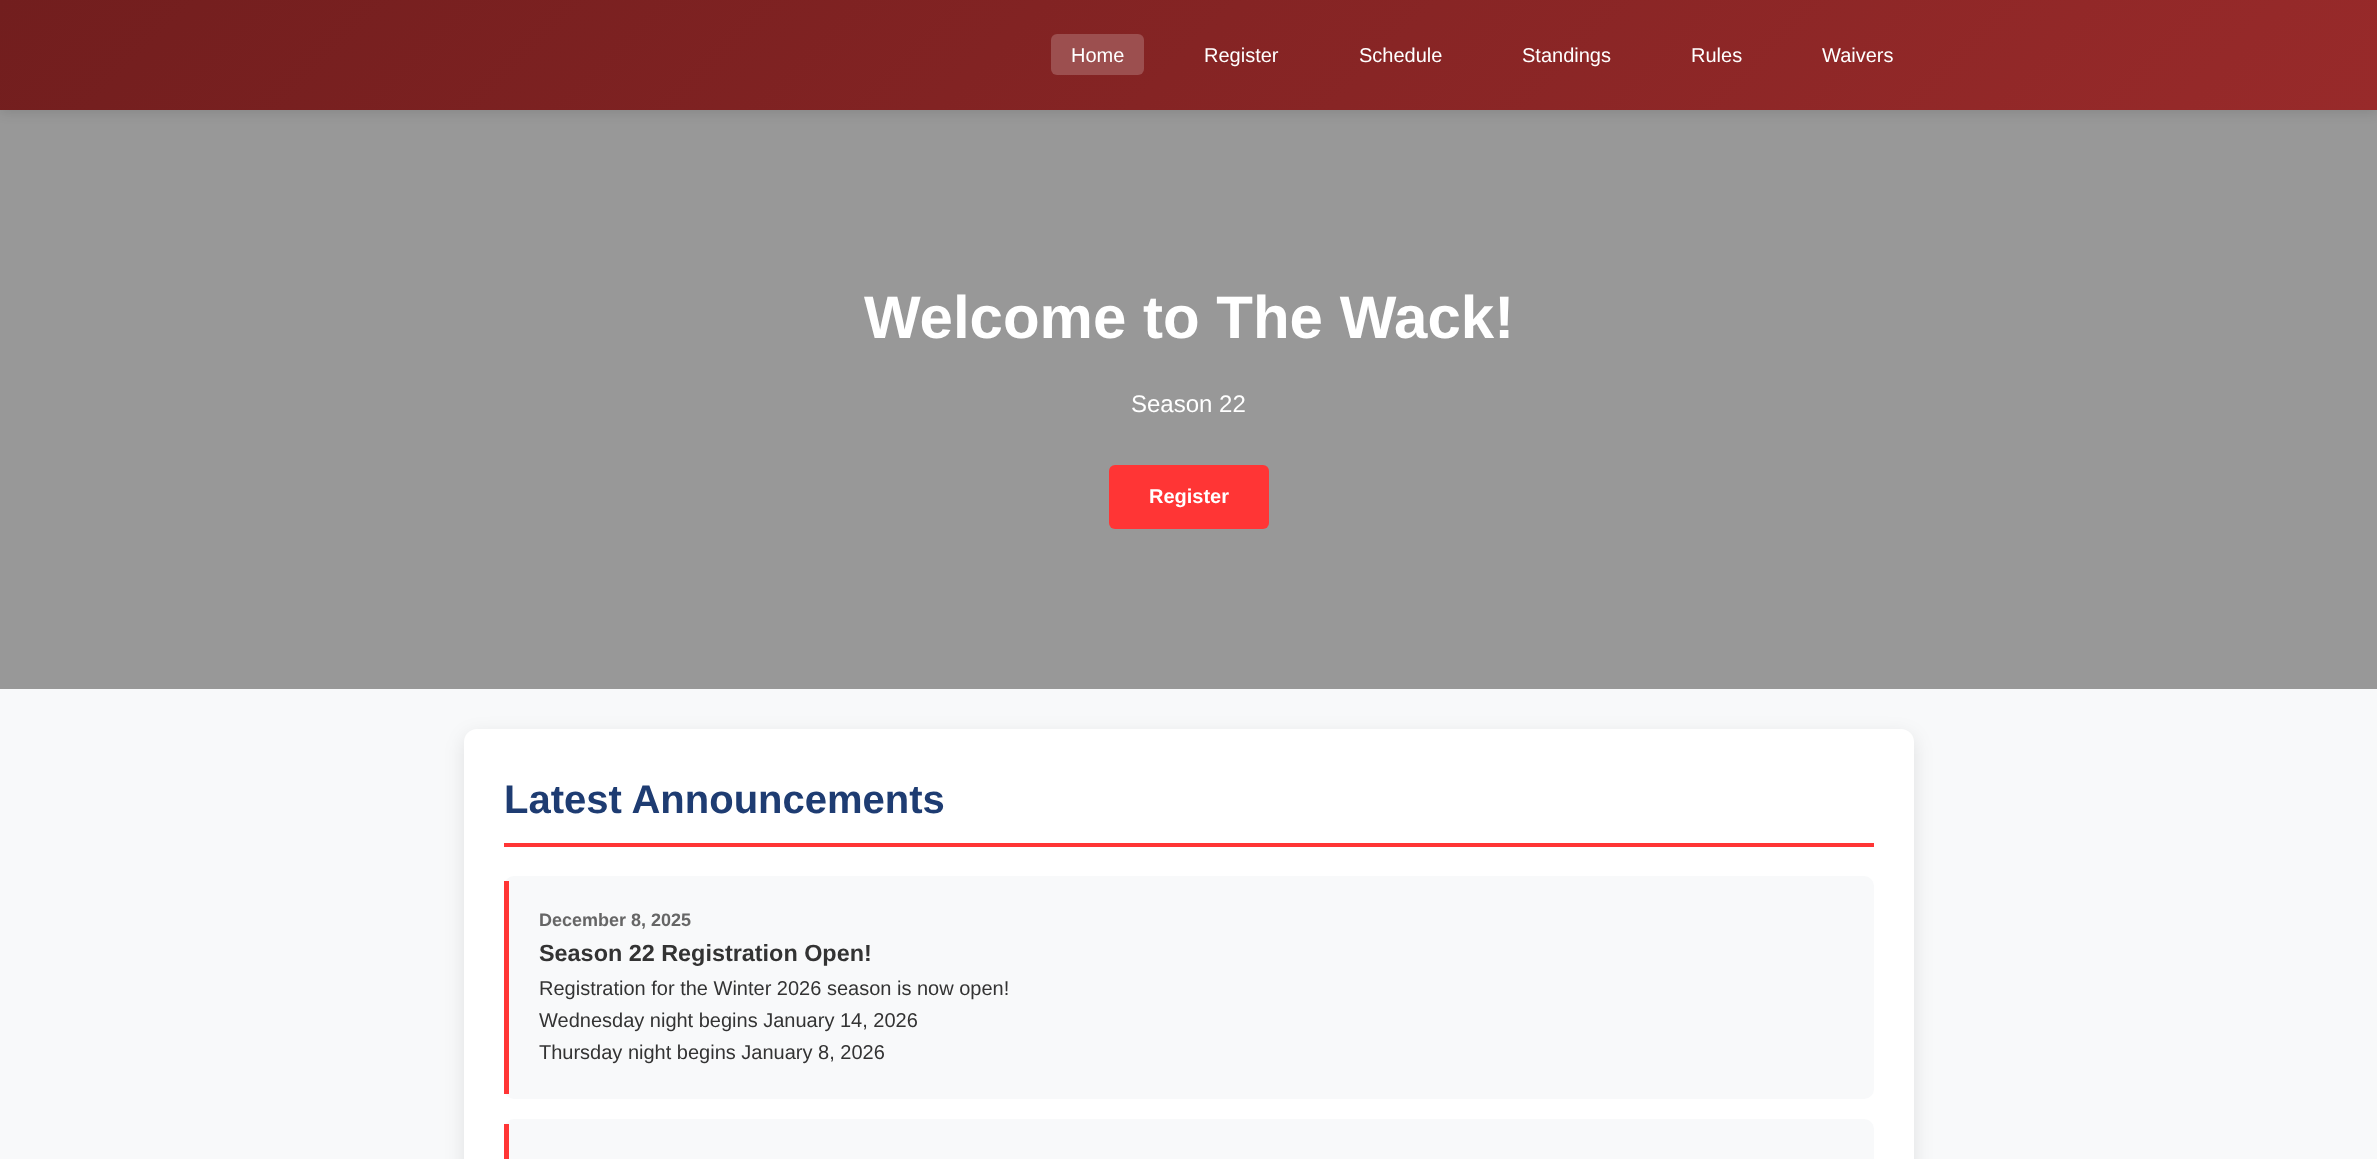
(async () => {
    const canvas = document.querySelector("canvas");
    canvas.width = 2377;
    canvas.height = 1159;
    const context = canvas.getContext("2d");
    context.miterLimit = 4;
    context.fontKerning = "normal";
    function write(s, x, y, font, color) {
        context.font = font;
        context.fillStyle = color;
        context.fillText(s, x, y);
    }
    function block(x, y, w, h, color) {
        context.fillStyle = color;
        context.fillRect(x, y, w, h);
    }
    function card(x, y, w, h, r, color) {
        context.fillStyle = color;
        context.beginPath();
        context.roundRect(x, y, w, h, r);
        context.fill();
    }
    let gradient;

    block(0, 0, 2377, 1159, "rgb(248, 249, 250)");
    block(0, 110, 2377, 579, "rgb(152, 152, 152)");
    context.fillStyle = "rgba(0, 0, 0, 0.1)";
    context.filter = "blur(6px)";
    context.beginPath();
    context.rect(0, 3, 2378, 110);
    context.fill();
    context.filter = "none";
    gradient = context.createLinearGradient(567, -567, 1811, 677);
    gradient.addColorStop(0, "rgb(114, 30, 30)");
    gradient.addColorStop(1, "rgb(152, 42, 42)");
    context.fillStyle = gradient;
    context.fillRect(0, 0, 2377, 110);
    card(1051, 34, 93, 41, 6, "rgb(156, 79, 79)");
    write("Home", 1071, 62, "20px Liberation Sans", "rgb(255, 255, 255)");
    write("Register", 1204, 62, "20px Liberation Sans", "rgb(255, 255, 255)");
    write("Schedule", 1359, 62, "20px Liberation Sans", "rgb(255, 255, 255)");
    write("Standings", 1522, 62, "20px Liberation Sans", "rgb(255, 255, 255)");
    write("Rules", 1691, 62, "20px Liberation Sans", "rgb(255, 255, 255)");
    write("Waivers", 1822, 62, "20px Liberation Sans", "rgb(255, 255, 255)");
    write("Welcome to The Wack!", 864, 338, "bold 60px Liberation Sans", "rgb(255, 255, 255)");
    write("Season 22", 1131, 412, "24px Liberation Sans", "rgb(255, 255, 255)");
    card(1109, 465, 160, 64, 6, "rgb(255, 53, 53)");
    write("Register", 1149, 503, "bold 20px Liberation Sans", "rgb(255, 255, 255)");
    context.fillStyle = "rgba(0, 0, 0, 0.1)";
    context.filter = "blur(9.5px)";
    context.beginPath();
    context.roundRect(464, 735, 1450, 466, 13);
    context.fill();
    context.filter = "none";
    card(464, 729, 1450, 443, 13, "rgb(255, 255, 255)");
    block(504, 843, 1370, 4, "rgb(255, 53, 53)");
    write("Latest Announcements", 504, 813, "bold 40px Liberation Sans", "rgb(30, 60, 114)");
    card(504, 876, 1370, 223, 10, "rgb(248, 249, 250)");
    block(504, 881, 5, 213, "rgb(255, 53, 53)");
    write("December 8, 2025", 539, 926, "bold 18px Liberation Sans", "rgb(102, 102, 102)");
    write("Season 22 Registration Open!", 539, 961, "bold 23.4px Liberation Sans", "rgb(51, 51, 51)");
    write("Registration for the Winter 2026 season is now open!", 539, 995, "20px Liberation Sans", "rgb(51, 51, 51)");
    write("Wednesday night begins January 14, 2026", 539, 1027, "20px Liberation Sans", "rgb(51, 51, 51)");
    write("Thursday night begins January 8, 2026", 539, 1059, "20px Liberation Sans", "rgb(51, 51, 51)");
    card(504, 1119, 1370, 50, 10, "rgb(248, 249, 250)");
    block(504, 1124, 5, 35, "rgb(255, 53, 53)");
})();
